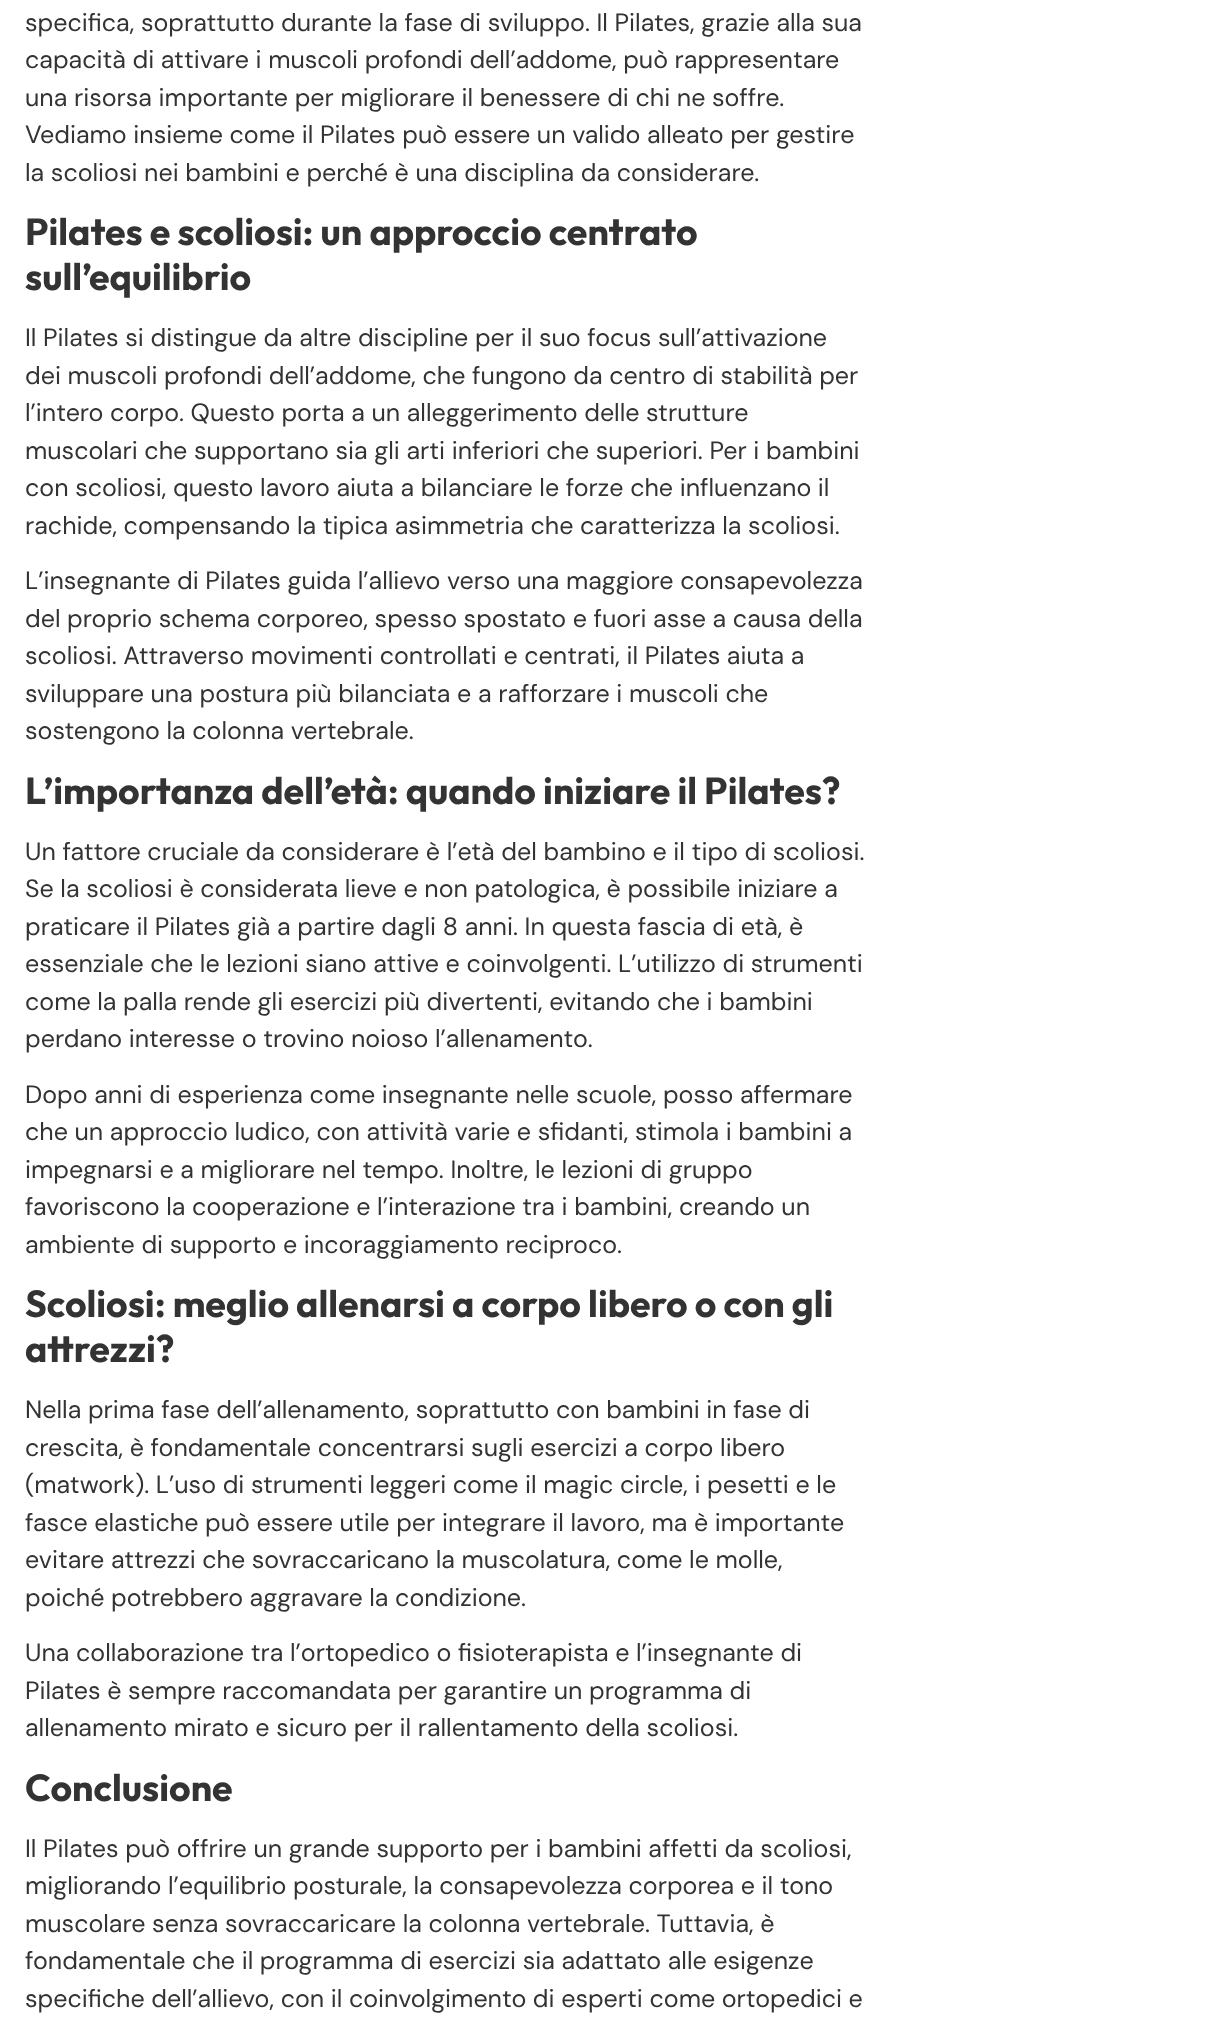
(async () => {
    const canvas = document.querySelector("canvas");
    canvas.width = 1218;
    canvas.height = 2031;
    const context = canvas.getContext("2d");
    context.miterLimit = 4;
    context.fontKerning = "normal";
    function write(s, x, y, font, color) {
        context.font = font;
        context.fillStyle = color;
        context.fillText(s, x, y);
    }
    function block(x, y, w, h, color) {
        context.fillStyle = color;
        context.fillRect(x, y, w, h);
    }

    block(0, 0, 1218, 2031, "rgb(255, 255, 255)");
    write("specifica, soprattutto durante la fase di sviluppo. Il Pilates, grazie alla sua", 25, 31, "25px DM Sans", "rgb(51, 51, 51)");
    write("capacità di attivare i muscoli profondi dell’addome, può rappresentare", 25, 68, "25px DM Sans", "rgb(51, 51, 51)");
    write("una risorsa importante per migliorare il benessere di chi ne soffre.", 25, 106, "25px DM Sans", "rgb(51, 51, 51)");
    write("Vediamo insieme come il Pilates può essere un valido alleato per gestire", 25, 143, "25px DM Sans", "rgb(51, 51, 51)");
    write("la scoliosi nei bambini e perché è una disciplina da considerare.", 25, 181, "25px DM Sans", "rgb(51, 51, 51)");
    write("Pilates e scoliosi: un approccio centrato", 25, 245, "bold 37.5px Outfit", "rgb(51, 51, 51)");
    write("sull’equilibrio", 25, 290, "bold 37.5px Outfit", "rgb(51, 51, 51)");
    write("Il Pilates si distingue da altre discipline per il suo focus sull’attivazione", 25, 346, "25px DM Sans", "rgb(51, 51, 51)");
    write("dei muscoli profondi dell’addome, che fungono da centro di stabilità per", 25, 384, "25px DM Sans", "rgb(51, 51, 51)");
    write("l’intero corpo. Questo porta a un alleggerimento delle strutture", 25, 421, "25px DM Sans", "rgb(51, 51, 51)");
    write("muscolari che supportano sia gli arti inferiori che superiori. Per i bambini", 25, 459, "25px DM Sans", "rgb(51, 51, 51)");
    write("con scoliosi, questo lavoro aiuta a bilanciare le forze che influenzano il", 25, 496, "25px DM Sans", "rgb(51, 51, 51)");
    write("rachide, compensando la tipica asimmetria che caratterizza la scoliosi.", 25, 534, "25px DM Sans", "rgb(51, 51, 51)");
    write("L’insegnante di Pilates guida l’allievo verso una maggiore consapevolezza", 25, 589, "25px DM Sans", "rgb(51, 51, 51)");
    write("del proprio schema corporeo, spesso spostato e fuori asse a causa della", 25, 627, "25px DM Sans", "rgb(51, 51, 51)");
    write("scoliosi. Attraverso movimenti controllati e centrati, il Pilates aiuta a", 25, 664, "25px DM Sans", "rgb(51, 51, 51)");
    write("sviluppare una postura più bilanciata e a rafforzare i muscoli che", 25, 702, "25px DM Sans", "rgb(51, 51, 51)");
    write("sostengono la colonna vertebrale.", 25, 739, "25px DM Sans", "rgb(51, 51, 51)");
    write("L’importanza dell’età: quando iniziare il Pilates?", 25, 804, "bold 37.5px Outfit", "rgb(51, 51, 51)");
    write("Un fattore cruciale da considerare è l’età del bambino e il tipo di scoliosi.", 25, 860, "25px DM Sans", "rgb(51, 51, 51)");
    write("Se la scoliosi è considerata lieve e non patologica, è possibile iniziare a", 25, 897, "25px DM Sans", "rgb(51, 51, 51)");
    write("praticare il Pilates già a partire dagli 8 anni. In questa fascia di età, è", 25, 935, "25px DM Sans", "rgb(51, 51, 51)");
    write("essenziale che le lezioni siano attive e coinvolgenti. L’utilizzo di strumenti", 25, 972, "25px DM Sans", "rgb(51, 51, 51)");
    write("come la palla rende gli esercizi più divertenti, evitando che i bambini", 25, 1010, "25px DM Sans", "rgb(51, 51, 51)");
    write("perdano interesse o trovino noioso l’allenamento.", 25, 1047, "25px DM Sans", "rgb(51, 51, 51)");
    write("Dopo anni di esperienza come insegnante nelle scuole, posso affermare", 25, 1103, "25px DM Sans", "rgb(51, 51, 51)");
    write("che un approccio ludico, con attività varie e sfidanti, stimola i bambini a", 25, 1140, "25px DM Sans", "rgb(51, 51, 51)");
    write("impegnarsi e a migliorare nel tempo. Inoltre, le lezioni di gruppo", 25, 1178, "25px DM Sans", "rgb(51, 51, 51)");
    write("favoriscono la cooperazione e l’interazione tra i bambini, creando un", 25, 1215, "25px DM Sans", "rgb(51, 51, 51)");
    write("ambiente di supporto e incoraggiamento reciproco.", 25, 1253, "25px DM Sans", "rgb(51, 51, 51)");
    write("Scoliosi: meglio allenarsi a corpo libero o con gli", 25, 1317, "bold 37.5px Outfit", "rgb(51, 51, 51)");
    write("attrezzi?", 25, 1362, "bold 37.5px Outfit", "rgb(51, 51, 51)");
    write("Nella prima fase dell’allenamento, soprattutto con bambini in fase di", 25, 1418, "25px DM Sans", "rgb(51, 51, 51)");
    write("crescita, è fondamentale concentrarsi sugli esercizi a corpo libero", 25, 1456, "25px DM Sans", "rgb(51, 51, 51)");
    write("(matwork). L’uso di strumenti leggeri come il magic circle, i pesetti e le", 25, 1493, "25px DM Sans", "rgb(51, 51, 51)");
    write("fasce elastiche può essere utile per integrare il lavoro, ma è importante", 25, 1531, "25px DM Sans", "rgb(51, 51, 51)");
    write("evitare attrezzi che sovraccaricano la muscolatura, come le molle,", 25, 1568, "25px DM Sans", "rgb(51, 51, 51)");
    write("poiché potrebbero aggravare la condizione.", 25, 1606, "25px DM Sans", "rgb(51, 51, 51)");
    write("Una collaborazione tra l’ortopedico o fisioterapista e l’insegnante di", 25, 1661, "25px DM Sans", "rgb(51, 51, 51)");
    write("Pilates è sempre raccomandata per garantire un programma di", 25, 1699, "25px DM Sans", "rgb(51, 51, 51)");
    write("allenamento mirato e sicuro per il rallentamento della scoliosi.", 25, 1736, "25px DM Sans", "rgb(51, 51, 51)");
    write("Conclusione", 25, 1801, "bold 37.5px Outfit", "rgb(51, 51, 51)");
    write("Il Pilates può offrire un grande supporto per i bambini affetti da scoliosi,", 25, 1857, "25px DM Sans", "rgb(51, 51, 51)");
    write("migliorando l’equilibrio posturale, la consapevolezza corporea e il tono", 25, 1894, "25px DM Sans", "rgb(51, 51, 51)");
    write("muscolare senza sovraccaricare la colonna vertebrale. Tuttavia, è", 25, 1932, "25px DM Sans", "rgb(51, 51, 51)");
    write("fondamentale che il programma di esercizi sia adattato alle esigenze", 25, 1969, "25px DM Sans", "rgb(51, 51, 51)");
    write("specifiche dell’allievo, con il coinvolgimento di esperti come ortopedici e", 25, 2007, "25px DM Sans", "rgb(51, 51, 51)");
})();
